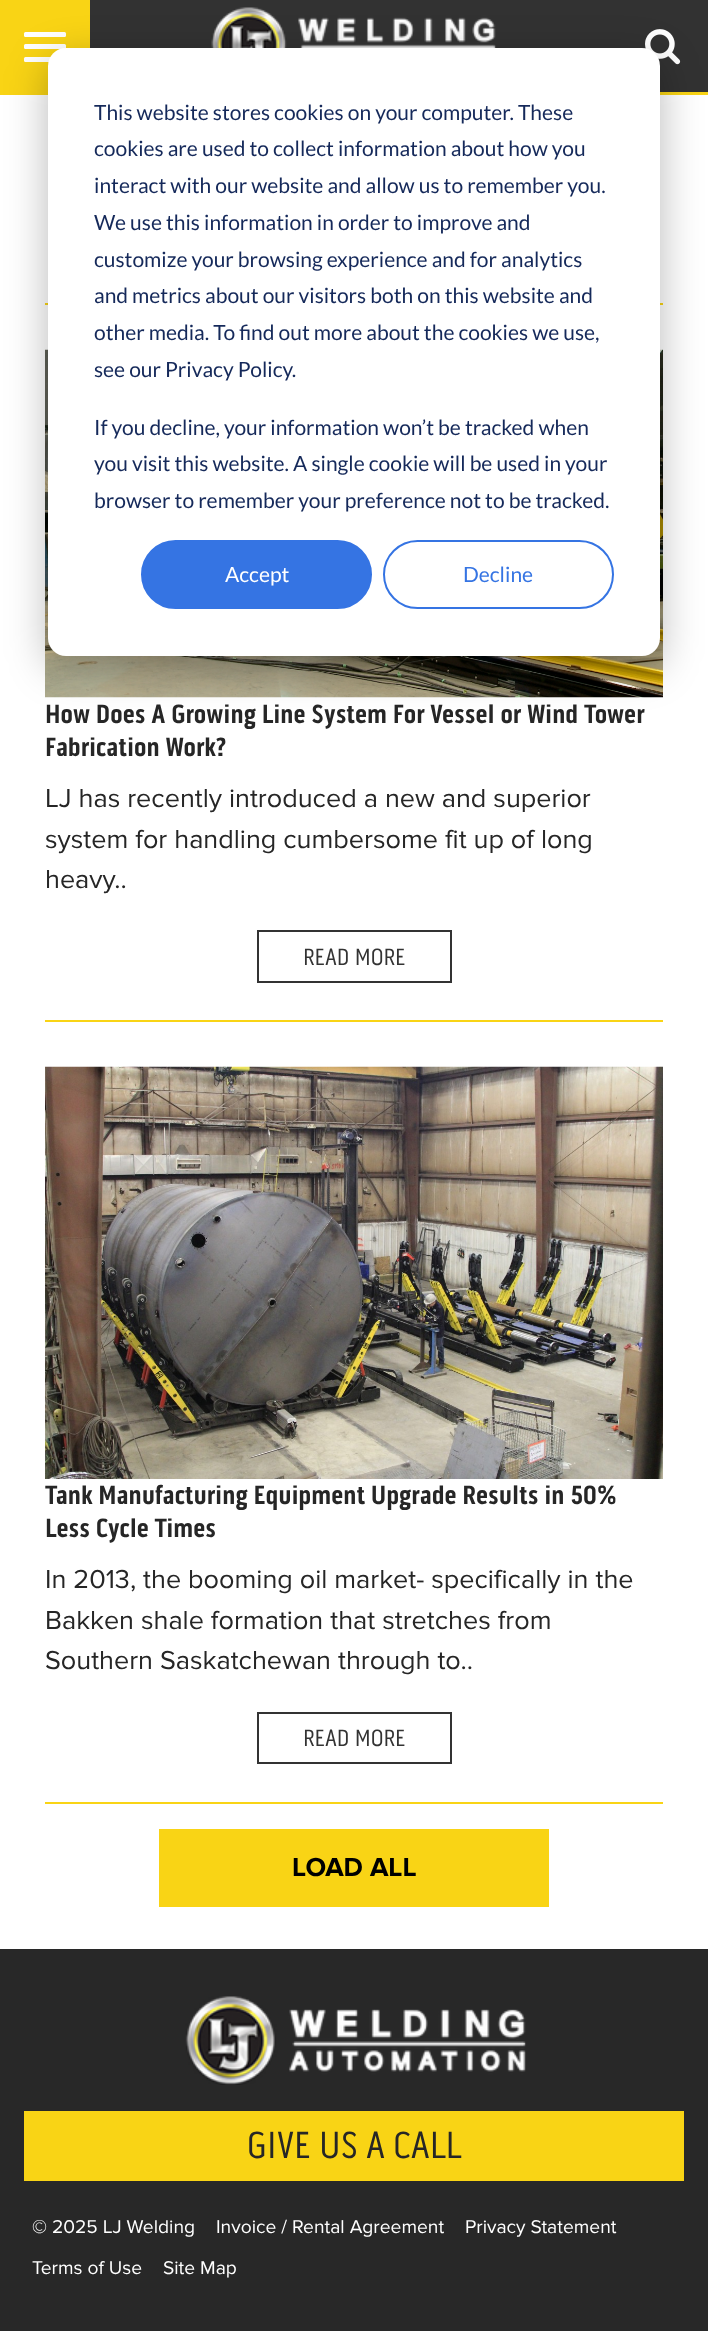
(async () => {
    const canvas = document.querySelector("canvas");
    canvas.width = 708;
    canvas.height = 2331;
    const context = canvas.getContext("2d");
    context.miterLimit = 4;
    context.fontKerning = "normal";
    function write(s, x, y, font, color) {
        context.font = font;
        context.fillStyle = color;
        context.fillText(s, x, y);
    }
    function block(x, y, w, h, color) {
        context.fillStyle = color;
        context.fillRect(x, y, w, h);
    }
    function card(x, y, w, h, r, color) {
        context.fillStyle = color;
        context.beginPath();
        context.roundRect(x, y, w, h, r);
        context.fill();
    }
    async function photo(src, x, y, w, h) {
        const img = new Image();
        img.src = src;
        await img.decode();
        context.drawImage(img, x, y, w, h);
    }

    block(0, 0, 708, 2331, "rgb(40, 40, 40)");
    block(90, 0, 618, 92, "rgb(50, 50, 50)");
    block(0, 92, 708, 3, "rgb(249, 212, 21)");
    block(0, 0, 90, 92, "rgb(249, 212, 21)");
    card(24, 44, 42, 5, 1.5, "rgb(255, 255, 255)");
    card(24, 32, 42, 5, 1.5, "rgb(255, 255, 255)");
    card(24, 57, 42, 5, 1.5, "rgb(255, 255, 255)");
    await photo("media/1.png", 211, 7, 285, 41);
    await photo("media/2.png", 645, 29, 36, 36);
    block(0, 95, 708, 1854, "rgb(255, 255, 255)");
    block(45, 303, 618, 2, "rgb(249, 212, 21)");
    await photo("media/3.png", 45, 349, 618, 349);
    context.fillStyle = "rgba(0, 0, 0, 0.28)";
    context.filter = "blur(21px)";
    context.beginPath();
    context.roundRect(48, 60, 612, 608, 18);
    context.fill();
    context.filter = "none";
    card(48, 48, 612, 608, 18, "rgb(255, 255, 255)");
    write("This website stores cookies on your computer. These", 94, 120, "21px Lato", "rgb(21, 41, 90)");
    write("cookies are used to collect information about how you", 94, 156, "21px Lato", "rgb(21, 41, 90)");
    write("interact with our website and allow us to remember you.", 94, 193, "21px Lato", "rgb(21, 41, 90)");
    write("We use this information in order to improve and", 94, 230, "21px Lato", "rgb(21, 41, 90)");
    write("customize your browsing experience and for analytics", 94, 267, "21px Lato", "rgb(21, 41, 90)");
    write("and metrics about our visitors both on this website and", 94, 303, "21px Lato", "rgb(21, 41, 90)");
    write("other media. To find out more about the cookies we use,", 94, 340, "21px Lato", "rgb(21, 41, 90)");
    write("see our Privacy Policy.", 94, 377, "21px Lato", "rgb(21, 41, 90)");
    write("If you decline, your information won’t be tracked when", 94, 435, "21px Lato", "rgb(21, 41, 90)");
    write("you visit this website. A single cookie will be used in your", 94, 471, "21px Lato", "rgb(21, 41, 90)");
    write("browser to remember your preference not to be tracked.", 94, 508, "21px Lato", "rgb(21, 41, 90)");
    context.fillStyle = "rgb(53, 116, 227)";
    context.beginPath();
    context.roundRect(142, 541, 229, 67, 33.5);
    context.fill();
    context.strokeStyle = "rgb(53, 116, 227)";
    context.lineWidth = 2;
    context.stroke();
    write("Accept", 225, 582, "21px Lato", "rgb(255, 255, 255)");
    context.beginPath();
    context.roundRect(384, 541, 229, 67, 33.5);
    context.stroke();
    write("Decline", 463, 582, "21px Lato", "rgb(53, 116, 227)");
    block(45, 1020, 618, 2, "rgb(249, 212, 21)");
    write("How Does A Growing Line System For Vessel or Wind Tower", 45, 723, "bold 27px 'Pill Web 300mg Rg'", "rgb(38, 38, 38)");
    write("Fabrication Work?", 45, 756, "bold 27px 'Pill Web 300mg Rg'", "rgb(38, 38, 38)");
    write("LJ has recently introduced a new and superior", 45, 807, "27px Proxima Nova", "rgb(38, 38, 38)");
    write("system for handling cumbersome fit up of long", 45, 848, "27px Proxima Nova", "rgb(38, 38, 38)");
    write("heavy..", 45, 888, "27px Proxima Nova", "rgb(38, 38, 38)");
    context.strokeStyle = "rgb(51, 51, 51)";
    context.strokeRect(258, 931, 193, 51);
    write("READ MORE", 303, 965, "24px 'Pill Web 300mg Rg'", "rgb(51, 51, 51)");
    block(45, 1802, 618, 2, "rgb(249, 212, 21)");
    await photo("media/4.png", 45, 1066, 618, 413);
    write("Tank Manufacturing Equipment Upgrade Results in 50%", 45, 1504, "bold 27px 'Pill Web 300mg Rg'", "rgb(38, 38, 38)");
    write("Less Cycle Times", 45, 1537, "bold 27px 'Pill Web 300mg Rg'", "rgb(38, 38, 38)");
    write("In 2013, the booming oil market- specifically in the", 45, 1588, "27px Proxima Nova", "rgb(38, 38, 38)");
    write("Bakken shale formation that stretches from", 45, 1629, "27px Proxima Nova", "rgb(38, 38, 38)");
    write("Southern Saskatchewan through to..", 45, 1669, "27px Proxima Nova", "rgb(38, 38, 38)");
    context.strokeRect(258, 1713, 193, 50);
    write("READ MORE", 303, 1746, "24px 'Pill Web 300mg Rg'", "rgb(51, 51, 51)");
    block(159, 1829, 390, 78, "rgb(249, 212, 21)");
    write("LOAD ALL", 292, 1876, "bold 27px Proxima Nova", "rgb(0, 0, 0)");
    await photo("media/5.png", 185, 1996, 341, 89);
    block(24, 2111, 660, 70, "rgb(249, 212, 21)");
    write("GIVE US A CALL", 247, 2158, "38.5px 'Pill Web 300mg Rg'", "rgb(38, 38, 38)");
    write("© 2025 LJ Welding", 32, 2233, "19.25px Proxima Nova", "rgb(255, 255, 255)");
    write("Invoice / Rental Agreement", 216, 2233, "19.25px Proxima Nova", "rgb(255, 255, 255)");
    write("Privacy Statement", 465, 2233, "19.25px Proxima Nova", "rgb(255, 255, 255)");
    write("Terms of Use", 32, 2274, "19.25px Proxima Nova", "rgb(255, 255, 255)");
    write("Site Map", 163, 2274, "19.25px Proxima Nova", "rgb(255, 255, 255)");
})();
